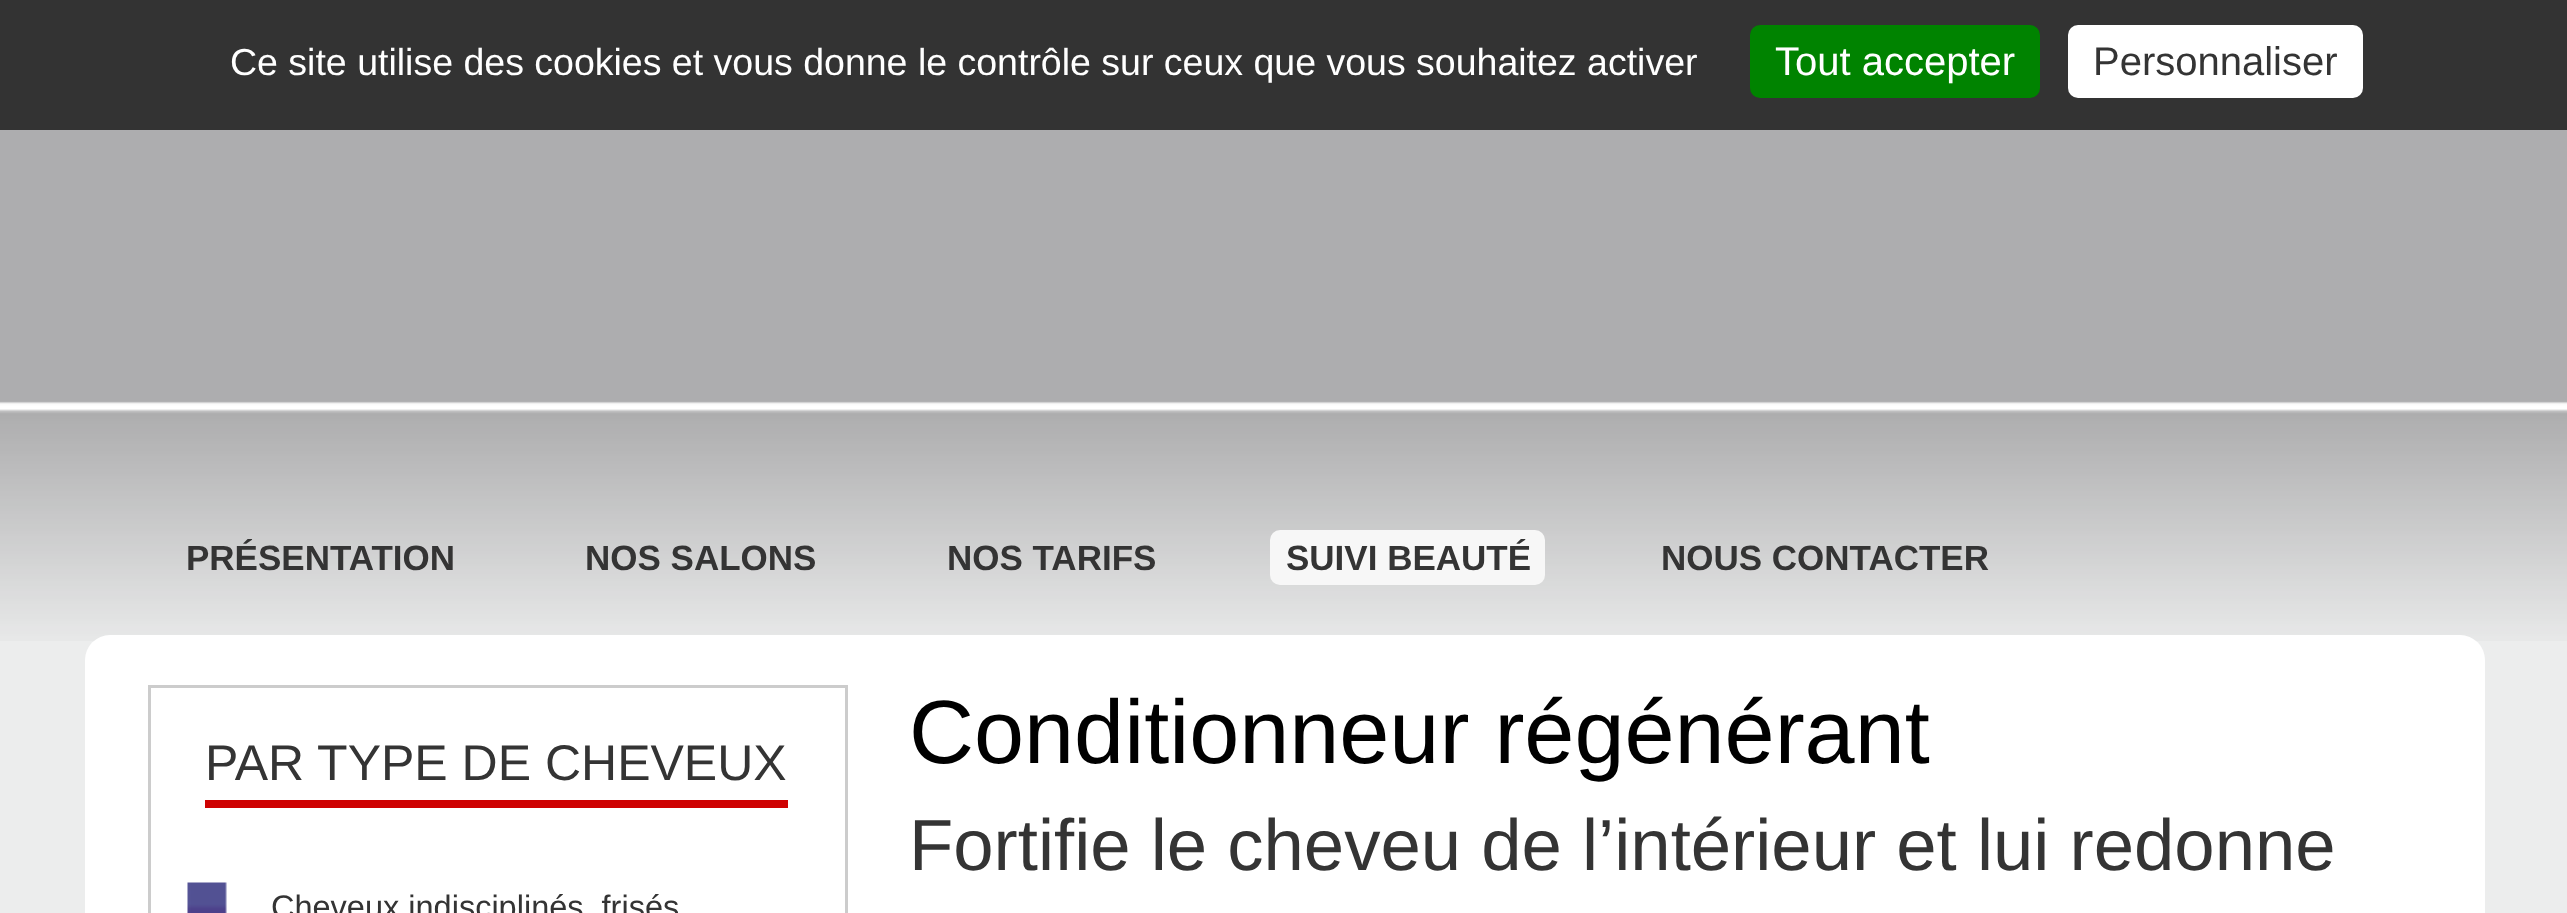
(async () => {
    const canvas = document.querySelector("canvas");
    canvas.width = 2567;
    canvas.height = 913;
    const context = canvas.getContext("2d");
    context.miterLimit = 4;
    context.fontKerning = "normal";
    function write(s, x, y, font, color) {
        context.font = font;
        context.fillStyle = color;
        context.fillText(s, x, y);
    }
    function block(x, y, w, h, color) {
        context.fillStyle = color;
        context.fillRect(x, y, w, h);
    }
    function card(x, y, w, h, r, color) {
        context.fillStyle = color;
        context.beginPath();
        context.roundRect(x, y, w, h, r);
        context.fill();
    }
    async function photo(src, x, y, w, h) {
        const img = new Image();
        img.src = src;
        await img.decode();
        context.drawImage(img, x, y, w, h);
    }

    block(0, 0, 2567, 913, "rgb(236, 237, 237)");
    await photo("media/1.png", 0, 130, 2567, 511);
    block(0, 0, 2567, 130, "rgb(51, 51, 51)");
    write("Ce site utilise des cookies et vous donne le contrôle sur ceux que vous souhaitez activer", 230, 75, "37.5px Liberation Sans", "rgb(255, 255, 255)");
    card(1750, 25, 290, 73, 10, "rgb(0, 131, 0)");
    write("Tout accepter", 1775, 75, "40px Liberation Sans", "rgb(255, 255, 255)");
    card(2068, 25, 295, 73, 10, "rgb(255, 255, 255)");
    write("Personnaliser", 2093, 75, "40px Liberation Sans", "rgb(52, 52, 52)");
    write("PRÉSENTATION", 186, 570, "bold 35px Liberation Sans", "rgb(52, 52, 52)");
    write("NOS SALONS", 585, 570, "bold 35px Liberation Sans", "rgb(52, 52, 52)");
    write("NOS TARIFS", 947, 570, "bold 35px Liberation Sans", "rgb(52, 52, 52)");
    card(1270, 530, 275, 55, 10, "rgb(247, 247, 247)");
    write("SUIVI BEAUTÉ", 1286, 570, "bold 35px Liberation Sans", "rgb(52, 52, 52)");
    write("NOUS CONTACTER", 1661, 570, "bold 35px Liberation Sans", "rgb(52, 52, 52)");
    card(85, 635, 2400, 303, 25, "rgb(255, 255, 255)");
    context.strokeStyle = "rgb(204, 204, 204)";
    context.lineWidth = 3;
    context.strokeRect(149.5, 686.5, 697, 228);
    write("PAR TYPE DE CHEVEUX", 205, 780, "50px Liberation Sans", "rgb(52, 52, 52)");
    block(205, 800, 583, 8, "rgb(206, 2, 2)");
    await photo("media/2.png", 187, 882, 40, 31);
    write("Cheveux indisciplinés, frisés", 271, 918, "32.5px Liberation Sans", "rgb(52, 52, 52)");
    write("Conditionneur régénérant", 909, 763, "90px Liberation Sans", "rgb(0, 0, 0)");
    write("Fortifie le cheveu de l’intérieur et lui redonne", 909, 870, "72.5px Liberation Sans", "rgb(52, 52, 52)");
})();
